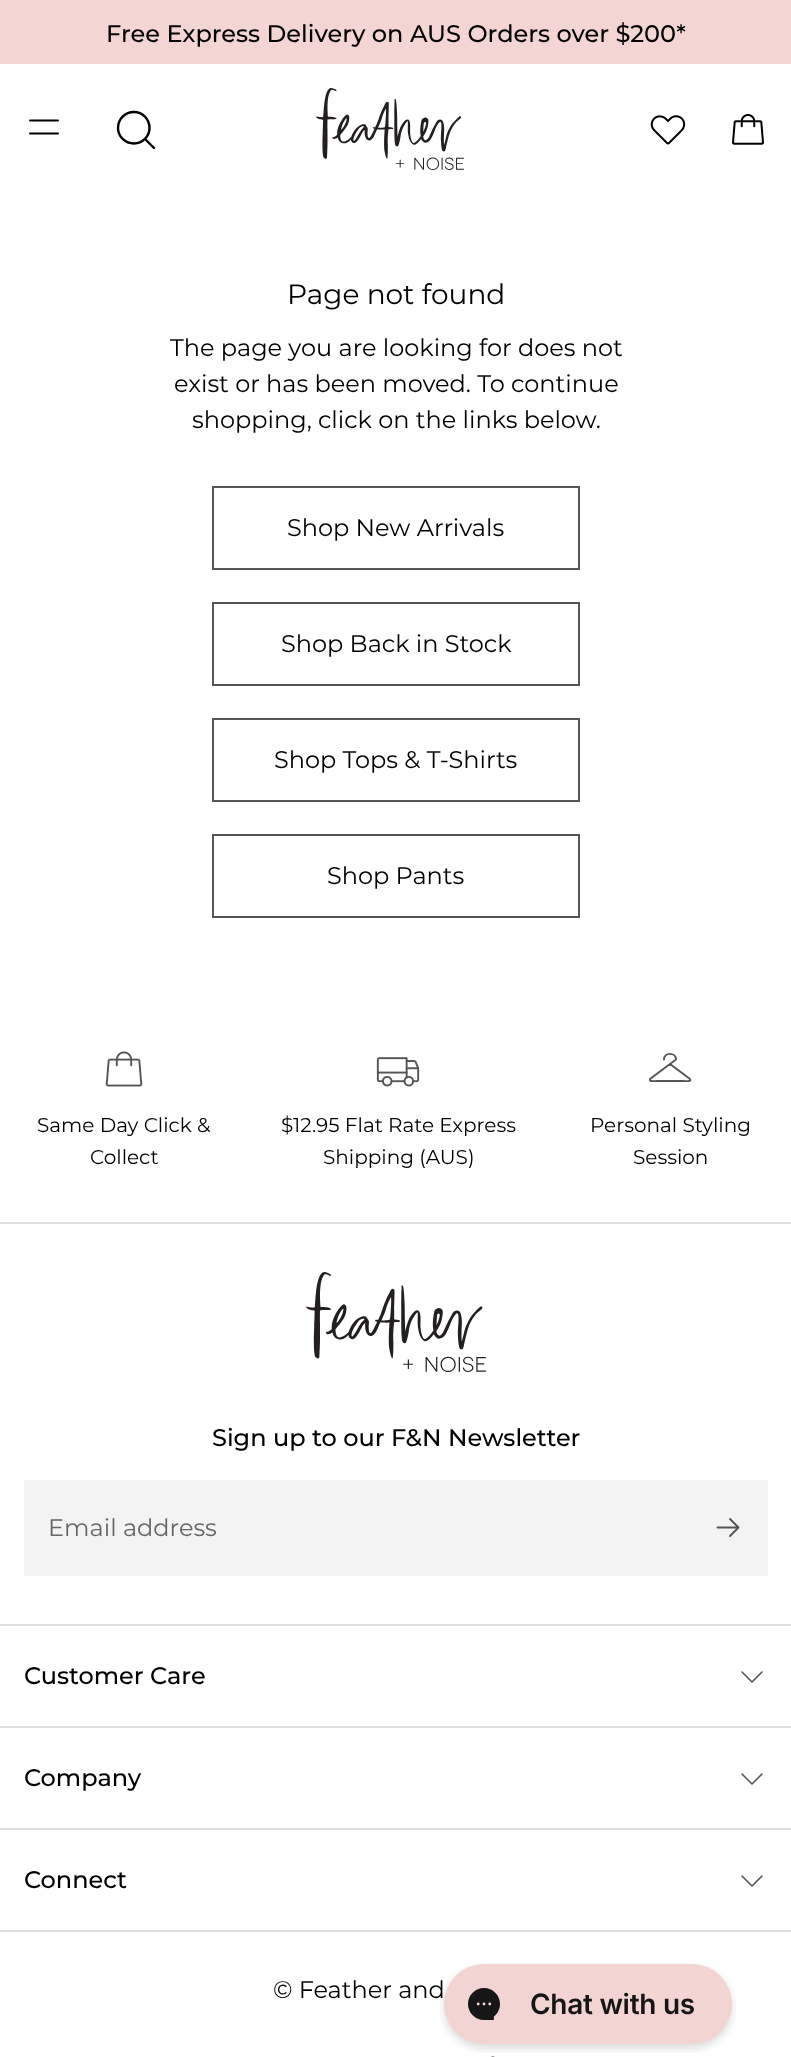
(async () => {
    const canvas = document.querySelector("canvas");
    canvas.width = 791;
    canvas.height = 2057;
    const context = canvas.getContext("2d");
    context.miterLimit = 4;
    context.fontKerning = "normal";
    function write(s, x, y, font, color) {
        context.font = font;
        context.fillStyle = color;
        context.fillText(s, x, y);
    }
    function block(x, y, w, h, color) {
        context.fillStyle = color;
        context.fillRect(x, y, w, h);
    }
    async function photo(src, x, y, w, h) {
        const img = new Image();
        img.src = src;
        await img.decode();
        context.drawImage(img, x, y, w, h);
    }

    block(0, 0, 791, 2057, "rgb(255, 255, 255)");
    block(0, 0, 791, 64, "rgb(243, 213, 211)");
    write("Free Express Delivery on AUS Orders over $200*", 106, 42, "500 24px Montserrat", "rgb(0, 0, 0)");
    context.beginPath();
    context.moveTo(30, 120.5);
    context.lineTo(58, 120.5);
    context.moveTo(30, 133.5);
    context.lineTo(58, 133.5);
    context.strokeStyle = "rgb(0, 0, 0)";
    context.lineWidth = 2;
    context.lineCap = "round";
    context.lineJoin = "round";
    context.stroke();
    context.beginPath();
    context.moveTo(134, 143.5);
    context.bezierCurveTo(142.5, 143.5, 149.5, 136.5, 149.5, 128);
    context.bezierCurveTo(149.5, 119, 142.5, 112, 134, 112);
    context.bezierCurveTo(125, 112, 118, 119, 118, 128);
    context.bezierCurveTo(118, 136.5, 125, 143.5, 134, 143.5);
    context.closePath();
    context.moveTo(145, 139);
    context.lineTo(154, 148);
    context.lineWidth = 2.4;
    context.stroke();
    await photo("media/1.png", 316, 88, 148, 82);
    await photo("media/2.png", 650, 115, 36, 30);
    await photo("media/3.png", 732, 114, 32, 31);
    write("Page not found", 287, 304, "100 28px Montserrat", "rgb(0, 0, 0)");
    write("The page you are looking for does not", 170, 356, "100 24px Montserrat", "rgb(0, 0, 0)");
    write("exist or has been moved. To continue", 174, 392, "100 24px Montserrat", "rgb(0, 0, 0)");
    write("shopping, click on the links below.", 192, 428, "100 24px Montserrat", "rgb(0, 0, 0)");
    context.strokeStyle = "rgb(85, 85, 85)";
    context.lineWidth = 2;
    context.lineJoin = "miter";
    context.strokeRect(213, 487, 366, 82);
    write("Shop New Arrivals", 287, 536, "100 24px Montserrat", "rgb(0, 0, 0)");
    context.strokeRect(213, 603, 366, 82);
    write("Shop Back in Stock", 281, 652, "100 24px Montserrat", "rgb(0, 0, 0)");
    context.strokeRect(213, 719, 366, 82);
    write("Shop Tops & T-Shirts", 274, 768, "100 24px Montserrat", "rgb(0, 0, 0)");
    context.strokeRect(213, 835, 366, 82);
    write("Shop Pants", 327, 884, "100 24px Montserrat", "rgb(0, 0, 0)");
    await photo("media/4.png", 105, 1051, 38, 36);
    write("Same Day Click &", 37, 1132, "100 20px Montserrat", "rgb(0, 0, 0)");
    write("Collect", 90, 1164, "100 20px Montserrat", "rgb(0, 0, 0)");
    await photo("media/5.png", 376, 1057, 44, 30);
    write("$12.95 Flat Rate Express", 281, 1132, "100 20px Montserrat", "rgb(0, 0, 0)");
    write("Shipping (AUS)", 323, 1164, "100 20px Montserrat", "rgb(0, 0, 0)");
    context.beginPath();
    context.moveTo(664, 1059.5);
    context.bezierCurveTo(664, 1052, 676, 1052, 676, 1059.5);
    context.lineTo(650, 1079);
    context.bezierCurveTo(649, 1082, 653.5, 1081, 657.5, 1081);
    context.lineTo(682.5, 1081);
    context.bezierCurveTo(687, 1081, 691.5, 1082, 690, 1079);
    context.lineTo(670, 1064);
    context.lineWidth = 1.9;
    context.lineJoin = "round";
    context.stroke();
    write("Personal Styling", 590, 1132, "100 20px Montserrat", "rgb(0, 0, 0)");
    write("Session", 633, 1164, "100 20px Montserrat", "rgb(0, 0, 0)");
    block(0, 1222, 791, 2, "rgb(224, 224, 224)");
    await photo("media/6.png", 306, 1272, 180, 100);
    write("Sign up to our F&N Newsletter", 212, 1446, "500 24px Montserrat", "rgb(0, 0, 0)");
    block(24, 1480, 744, 96, "rgb(243, 243, 243)");
    write("Email address", 48, 1536, "100 24px Montserrat", "rgb(102, 102, 102)");
    context.beginPath();
    context.moveTo(717.5, 1527.5);
    context.lineTo(738.5, 1527.5);
    context.moveTo(730, 1519);
    context.lineTo(738.5, 1527.5);
    context.lineTo(730, 1536);
    context.stroke();
    block(0, 1624, 791, 2, "rgb(224, 224, 224)");
    block(0, 1726, 791, 2, "rgb(224, 224, 224)");
    write("Customer Care", 24, 1684, "500 24px Montserrat", "rgb(0, 0, 0)");
    context.beginPath();
    context.moveTo(762, 1672);
    context.lineTo(752, 1682);
    context.lineTo(742, 1672);
    context.lineWidth = 1.6;
    context.stroke();
    block(0, 1828, 791, 2, "rgb(224, 224, 224)");
    write("Company", 24, 1786, "500 24px Montserrat", "rgb(0, 0, 0)");
    context.beginPath();
    context.moveTo(762, 1774);
    context.lineTo(752, 1784);
    context.lineTo(742, 1774);
    context.stroke();
    write("Connect", 24, 1888, "500 24px Montserrat", "rgb(0, 0, 0)");
    context.beginPath();
    context.moveTo(762, 1876);
    context.lineTo(752, 1886);
    context.lineTo(742, 1876);
    context.stroke();
    block(0, 1930, 791, 2, "rgb(224, 224, 224)");
    write("© Feather and", 273, 1998, "100 24px Montserrat", "rgb(0, 0, 0)");
    await photo("media/7.png", 491, 2056, 4, 1);
    await photo("media/8.png", 440, 1963, 296, 90);
})();
